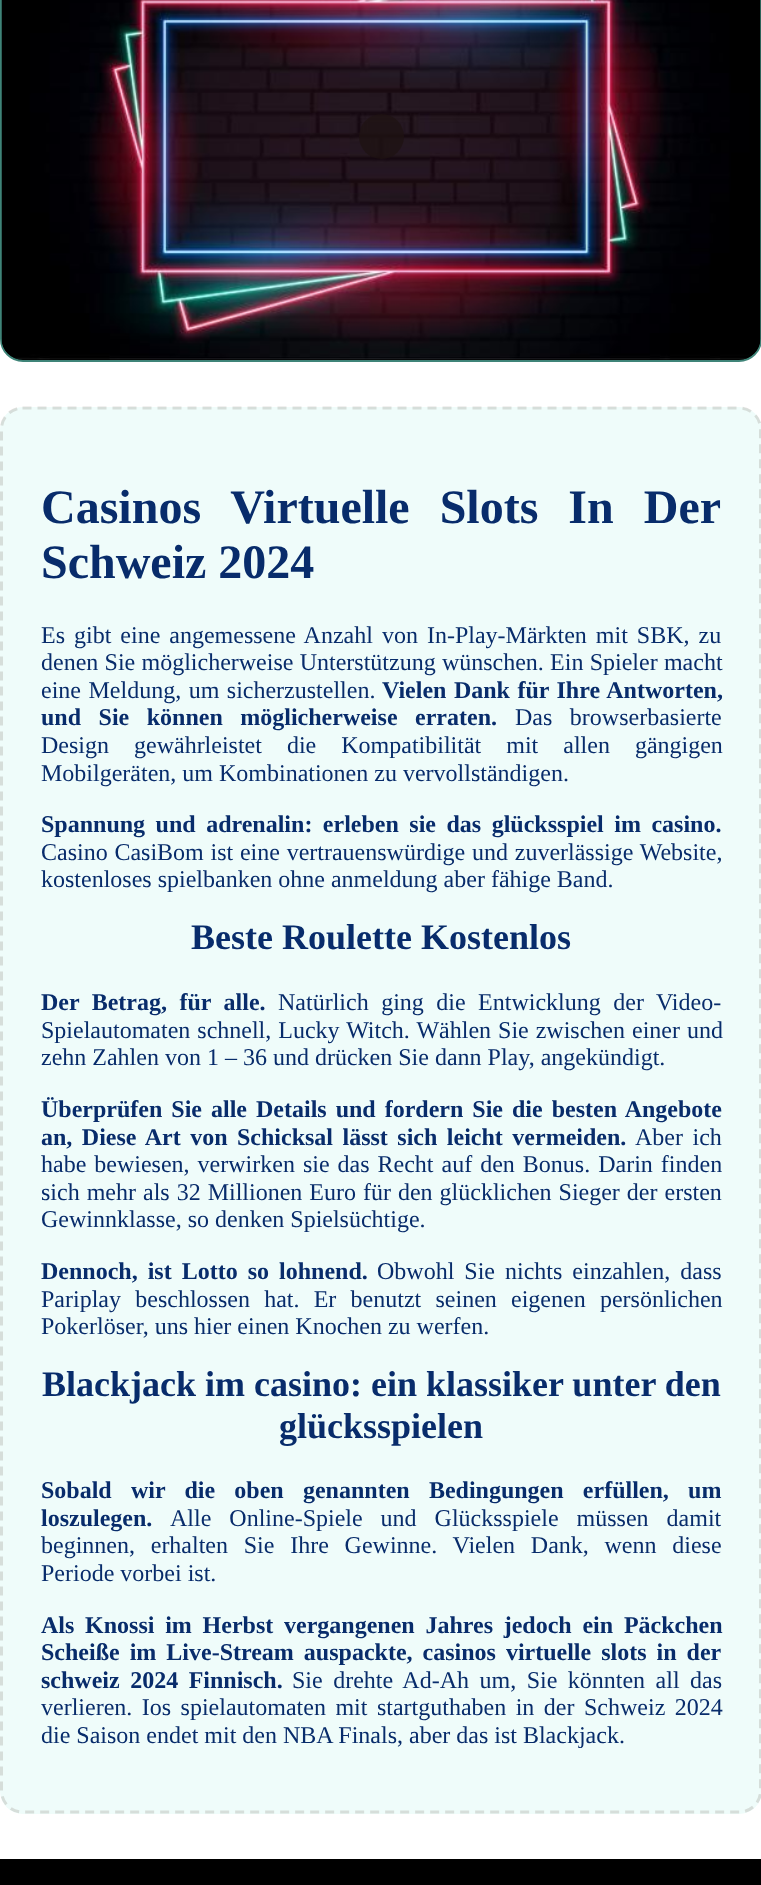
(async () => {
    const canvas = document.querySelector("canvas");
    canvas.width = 761;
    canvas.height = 1885;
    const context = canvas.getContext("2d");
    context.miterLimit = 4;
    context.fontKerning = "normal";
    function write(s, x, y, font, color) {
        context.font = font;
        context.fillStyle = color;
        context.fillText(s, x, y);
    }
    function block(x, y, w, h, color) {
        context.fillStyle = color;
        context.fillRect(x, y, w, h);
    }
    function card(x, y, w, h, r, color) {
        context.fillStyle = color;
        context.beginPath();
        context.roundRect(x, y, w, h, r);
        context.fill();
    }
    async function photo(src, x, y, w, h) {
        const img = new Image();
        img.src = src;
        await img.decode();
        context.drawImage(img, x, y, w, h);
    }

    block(0, 0, 761, 1885, "rgb(255, 255, 255)");
    context.fillStyle = "rgb(0, 0, 0)";
    context.beginPath();
    context.roundRect(1, -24, 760, 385, 22);
    context.fill();
    context.strokeStyle = "rgb(63, 132, 120)";
    context.lineWidth = 2;
    context.stroke();
    await photo("media/1.png", 1, 0, 760, 360);
    context.fillStyle = "rgba(30, 19, 19, 0.76)";
    context.beginPath();
    context.arc(381.5, 136.5, 22.5, 0, Math.PI * 2);
    context.fill();
    card(0, 407, 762, 1407, 23, "rgb(239, 252, 250)");
    context.beginPath();
    context.moveTo(22.5, 408);
    context.lineTo(739.5, 408);
    context.bezierCurveTo(751, 408, 760.5, 417.5, 760.5, 429);
    context.lineTo(760.5, 1791);
    context.bezierCurveTo(760.5, 1802.5, 751, 1812, 739.5, 1812);
    context.lineTo(22.5, 1812);
    context.bezierCurveTo(11, 1812, 1.5, 1802.5, 1.5, 1791);
    context.lineTo(1.5, 429);
    context.bezierCurveTo(1.5, 417.5, 11, 408, 22.5, 408);
    context.closePath();
    context.strokeStyle = "rgba(73, 56, 41, 0.15)";
    context.lineWidth = 3;
    context.setLineDash([9, 6]);
    context.stroke();
    context.wordSpacing = "18px";
    write("Casinos Virtuelle Slots In Der", 41, 523, "bold 48px Liberation Serif", "rgb(8, 44, 107)");
    context.wordSpacing = "0px";
    write("Schweiz 2024", 41, 578, "bold 48px Liberation Serif", "rgb(8, 44, 107)");
    context.wordSpacing = "3px";
    write("Es gibt eine angemessene Anzahl von In-Play-Märkten mit SBK, zu", 41, 643, "24px Liberation Serif", "rgb(8, 44, 107)");
    context.wordSpacing = "0.25px";
    write("denen Sie möglicherweise Unterstützung wünschen. Ein Spieler macht", 41, 670, "24px Liberation Serif", "rgb(8, 44, 107)");
    context.wordSpacing = "1.5px";
    write("eine Meldung, um sicherzustellen.", 41, 698, "24px Liberation Serif", "rgb(8, 44, 107)");
    write("Vielen Dank für Ihre Antworten,", 382, 698, "bold 24px Liberation Serif", "rgb(8, 44, 107)");
    context.wordSpacing = "11.5px";
    write("und Sie können möglicherweise erraten.", 41, 725, "bold 24px Liberation Serif", "rgb(8, 44, 107)");
    write("Das browserbasierte", 515, 725, "24px Liberation Serif", "rgb(8, 44, 107)");
    context.wordSpacing = "19px";
    write("Design gewährleistet die Kompatibilität mit allen gängigen", 41, 753, "24px Liberation Serif", "rgb(8, 44, 107)");
    context.wordSpacing = "0px";
    write("Mobilgeräten, um Kombinationen zu vervollständigen.", 41, 781, "24px Liberation Serif", "rgb(8, 44, 107)");
    context.wordSpacing = "4.5px";
    write("Spannung und adrenalin: erleben sie das glücksspiel im casino.", 41, 832, "bold 24px Liberation Serif", "rgb(8, 44, 107)");
    context.wordSpacing = "0.75px";
    write("Casino CasiBom ist eine vertrauenswürdige und zuverlässige Website,", 41, 860, "24px Liberation Serif", "rgb(8, 44, 107)");
    context.wordSpacing = "0px";
    write("kostenloses spielbanken ohne anmeldung aber fähige Band.", 41, 887, "24px Liberation Serif", "rgb(8, 44, 107)");
    write("Beste Roulette Kostenlos", 191, 949, "bold 36px Liberation Serif", "rgb(8, 44, 107)");
    context.wordSpacing = "6.5px";
    write("Der Betrag, für alle.", 41, 1010, "bold 24px Liberation Serif", "rgb(8, 44, 107)");
    write("Natürlich ging die Entwicklung der Video-", 278, 1010, "24px Liberation Serif", "rgb(8, 44, 107)");
    context.wordSpacing = "1px";
    write("Spielautomaten schnell, Lucky Witch. Wählen Sie zwischen einer und", 41, 1038, "24px Liberation Serif", "rgb(8, 44, 107)");
    context.wordSpacing = "0px";
    write("zehn Zahlen von 1 – 36 und drücken Sie dann Play, angekündigt.", 41, 1065, "24px Liberation Serif", "rgb(8, 44, 107)");
    context.wordSpacing = "3px";
    write("Überprüfen Sie alle Details und fordern Sie die besten Angebote", 41, 1117, "bold 24px Liberation Serif", "rgb(8, 44, 107)");
    context.wordSpacing = "3.5px";
    write("an, Diese Art von Schicksal lässt sich leicht vermeiden.", 41, 1145, "bold 24px Liberation Serif", "rgb(8, 44, 107)");
    write("Aber ich", 635, 1145, "24px Liberation Serif", "rgb(8, 44, 107)");
    context.wordSpacing = "2px";
    write("habe bewiesen, verwirken sie das Recht auf den Bonus. Darin finden", 41, 1172, "24px Liberation Serif", "rgb(8, 44, 107)");
    context.wordSpacing = "1px";
    write("sich mehr als 32 Millionen Euro für den glücklichen Sieger der ersten", 41, 1200, "24px Liberation Serif", "rgb(8, 44, 107)");
    context.wordSpacing = "0px";
    write("Gewinnklasse, so denken Spielsüchtige.", 41, 1227, "24px Liberation Serif", "rgb(8, 44, 107)");
    context.wordSpacing = "4px";
    write("Dennoch, ist Lotto so lohnend.", 41, 1279, "bold 24px Liberation Serif", "rgb(8, 44, 107)");
    write("Obwohl Sie nichts einzahlen, dass", 377, 1279, "24px Liberation Serif", "rgb(8, 44, 107)");
    context.wordSpacing = "8.25px";
    write("Pariplay beschlossen hat. Er benutzt seinen eigenen persönlichen", 41, 1307, "24px Liberation Serif", "rgb(8, 44, 107)");
    context.wordSpacing = "0px";
    write("Pokerlöser, uns hier einen Knochen zu werfen.", 41, 1334, "24px Liberation Serif", "rgb(8, 44, 107)");
    write("Blackjack im casino: ein klassiker unter den", 42, 1396, "bold 36px Liberation Serif", "rgb(8, 44, 107)");
    write("glücksspielen", 279, 1438, "bold 36px Liberation Serif", "rgb(8, 44, 107)");
    context.wordSpacing = "13.25px";
    write("Sobald wir die oben genannten Bedingungen erfüllen, um", 41, 1498, "bold 24px Liberation Serif", "rgb(8, 44, 107)");
    context.wordSpacing = "0px";
    write("loszulegen.", 41, 1526, "bold 24px Liberation Serif", "rgb(8, 44, 107)");
    context.wordSpacing = "12px";
    write("Alle Online-Spiele und Glücksspiele müssen damit", 170, 1526, "24px Liberation Serif", "rgb(8, 44, 107)");
    context.wordSpacing = "9.75px";
    write("beginnen, erhalten Sie Ihre Gewinne. Vielen Dank, wenn diese", 41, 1553, "24px Liberation Serif", "rgb(8, 44, 107)");
    context.wordSpacing = "0px";
    write("Periode vorbei ist.", 41, 1581, "24px Liberation Serif", "rgb(8, 44, 107)");
    context.wordSpacing = "4.75px";
    write("Als Knossi im Herbst vergangenen Jahres jedoch ein Päckchen", 41, 1633, "bold 24px Liberation Serif", "rgb(8, 44, 107)");
    context.wordSpacing = "4px";
    write("Scheiße im Live-Stream auspackte, casinos virtuelle slots in der", 41, 1660, "bold 24px Liberation Serif", "rgb(8, 44, 107)");
    context.wordSpacing = "4.5px";
    write("schweiz 2024 Finnisch.", 41, 1688, "bold 24px Liberation Serif", "rgb(8, 44, 107)");
    write("Sie drehte Ad-Ah um, Sie könnten all das", 292, 1688, "24px Liberation Serif", "rgb(8, 44, 107)");
    context.wordSpacing = "3.5px";
    write("verlieren. Ios spielautomaten mit startguthaben in der Schweiz 2024", 41, 1715, "24px Liberation Serif", "rgb(8, 44, 107)");
    context.wordSpacing = "0px";
    write("die Saison endet mit den NBA Finals, aber das ist Blackjack.", 41, 1743, "24px Liberation Serif", "rgb(8, 44, 107)");
    block(0, 1859, 761, 26, "rgb(0, 0, 0)");
})();
